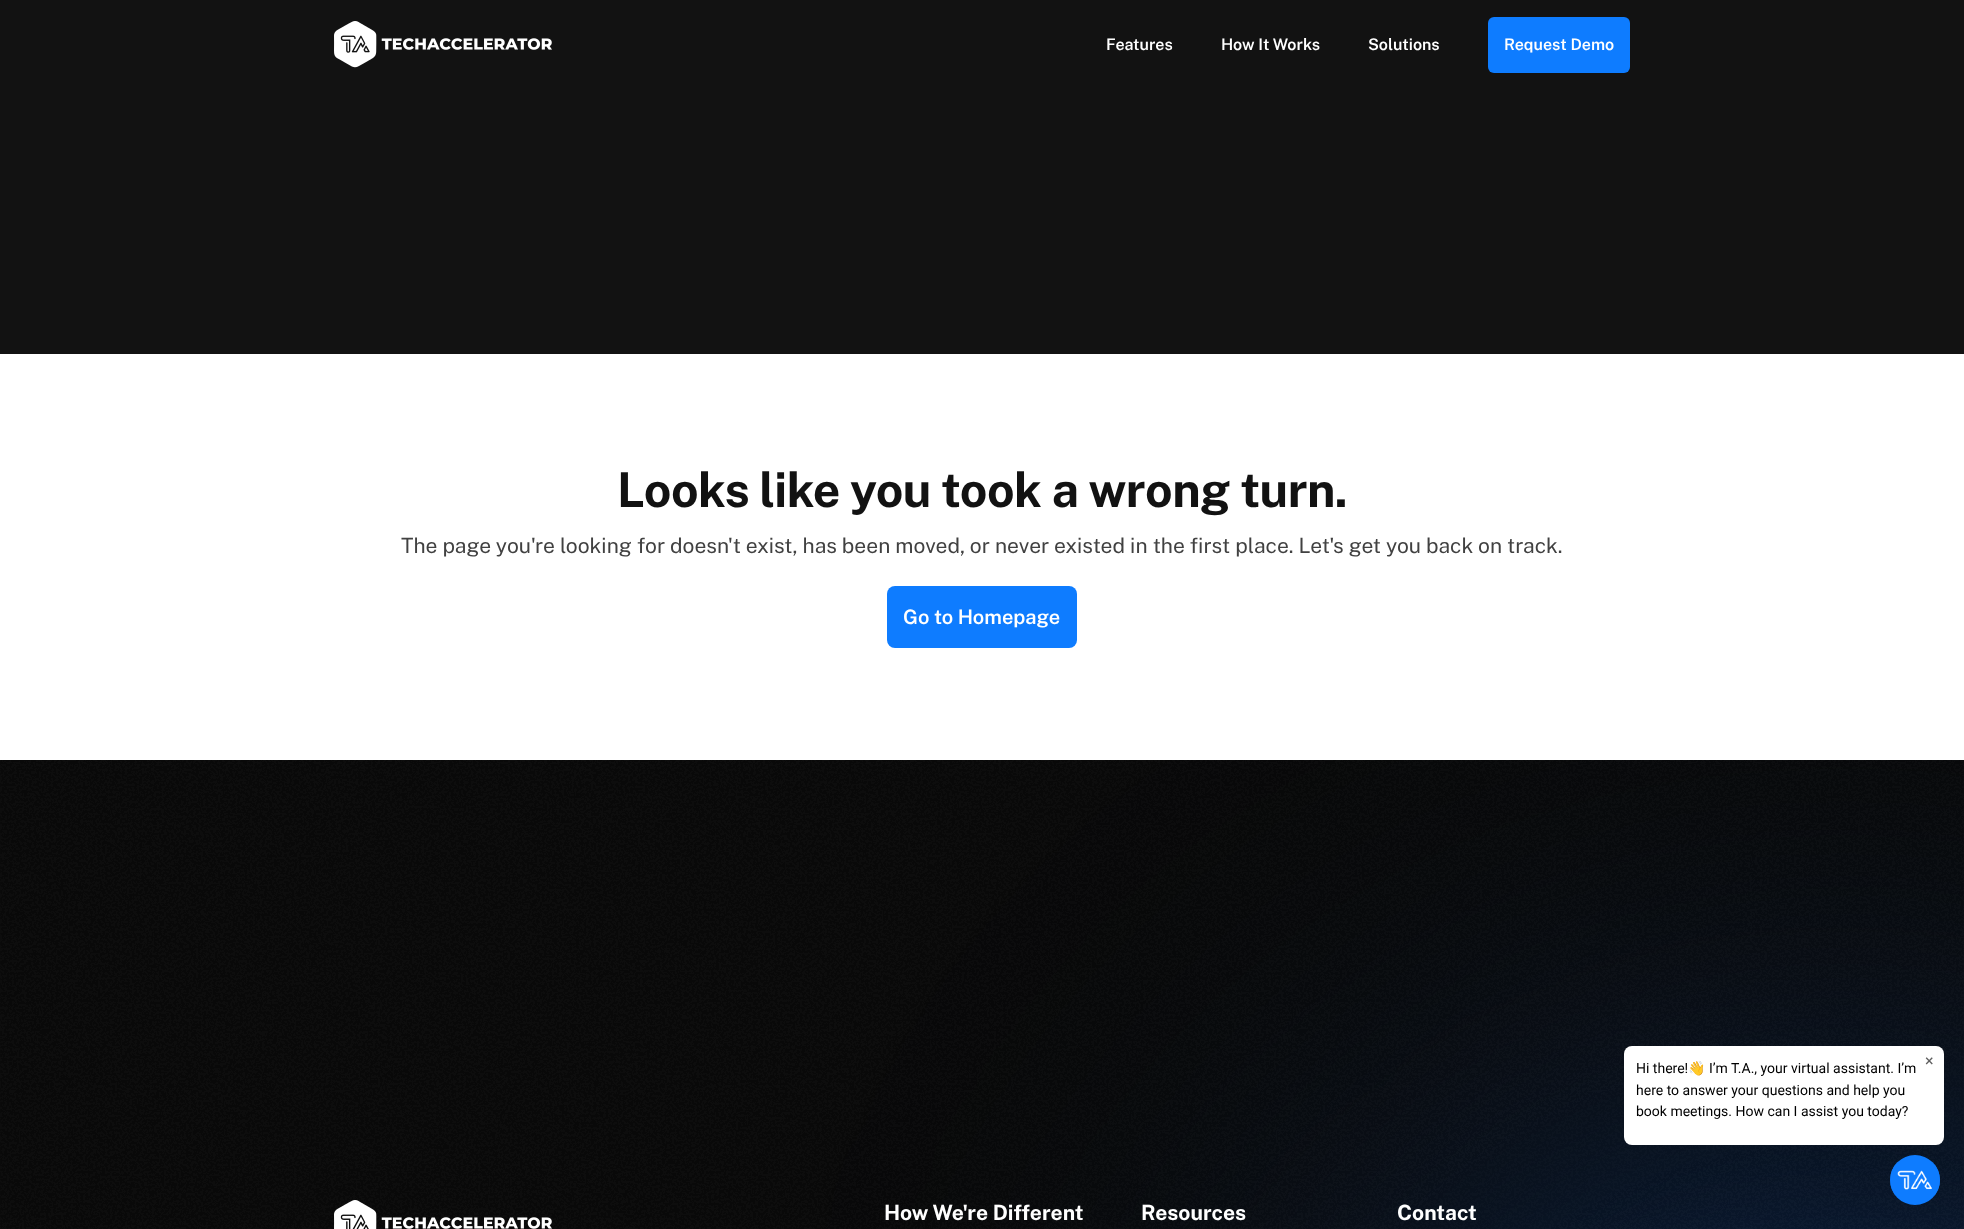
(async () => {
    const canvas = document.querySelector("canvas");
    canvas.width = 1964;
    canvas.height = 1229;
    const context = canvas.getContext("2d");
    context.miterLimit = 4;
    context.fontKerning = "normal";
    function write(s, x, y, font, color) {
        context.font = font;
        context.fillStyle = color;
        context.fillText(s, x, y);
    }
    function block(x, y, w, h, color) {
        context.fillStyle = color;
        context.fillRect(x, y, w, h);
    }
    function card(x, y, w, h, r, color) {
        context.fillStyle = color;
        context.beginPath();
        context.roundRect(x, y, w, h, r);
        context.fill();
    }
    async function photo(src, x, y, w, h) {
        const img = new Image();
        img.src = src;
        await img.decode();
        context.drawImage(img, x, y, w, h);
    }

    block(0, 0, 1964, 1229, "rgb(255, 255, 255)");
    block(0, 0, 1964, 354, "rgb(18, 18, 18)");
    await photo("media/1.png", 334, 21, 218, 47);
    write("Features", 1106, 50, "600 16px Public Sans", "rgb(255, 255, 255)");
    write("How It Works", 1221, 50, "600 16px Public Sans", "rgb(255, 255, 255)");
    write("Solutions", 1368, 50, "600 16px Public Sans", "rgb(255, 255, 255)");
    card(1488, 17, 142, 56, 6, "rgb(14, 124, 255)");
    write("Request Demo", 1504, 50, "600 16px Public Sans", "rgb(255, 255, 255)");
    context.letterSpacing = "-0.5px";
    write("Looks like you took a wrong turn.", 617, 507, "bold 48px Public Sans", "rgb(18, 18, 18)");
    context.letterSpacing = "0px";
    write("The page you're looking for doesn't exist, has been moved, or never existed in the first place. Let's get you back on track.", 401, 553, "21px Public Sans", "rgb(65, 65, 65)");
    card(887, 586, 190, 62, 8, "rgb(14, 124, 255)");
    write("Go to Homepage", 903, 624, "600 20px Public Sans", "rgb(255, 255, 255)");
    await photo("media/3.png", 0, 760, 1964, 469);
    card(1624, 1046, 320, 99, 8, "rgb(255, 255, 255)");
    write("Hi there!", 1636, 1073, "14px Roboto", "rgb(0, 0, 0)");
    write("👋", 1688, 1073, "14px Noto Color Emoji", "rgb(0, 0, 0)");
    write("I’m T.A., your virtual assistant. I’m", 1709, 1073, "14px Roboto", "rgb(0, 0, 0)");
    write("here to answer your questions and help you", 1636, 1095, "14px Roboto", "rgb(0, 0, 0)");
    write("book meetings. How can I assist you today?", 1636, 1116, "14px Roboto", "rgb(0, 0, 0)");
    write("×", 1925, 1066, "16px Roboto", "rgb(96, 96, 96)");
    context.fillStyle = "rgb(14, 124, 255)";
    context.beginPath();
    context.arc(1915, 1180, 25, 0, Math.PI * 2);
    context.fill();
    await photo("media/2.png", 1890, 1163, 50, 33);
    await photo("media/4.png", 334, 1200, 218, 29);
    write("How We're Different", 884, 1220, "bold 21px Public Sans", "rgb(255, 255, 255)");
    write("Resources", 1141, 1220, "bold 21px Public Sans", "rgb(255, 255, 255)");
    write("Contact", 1397, 1220, "bold 21px Public Sans", "rgb(255, 255, 255)");
})();
